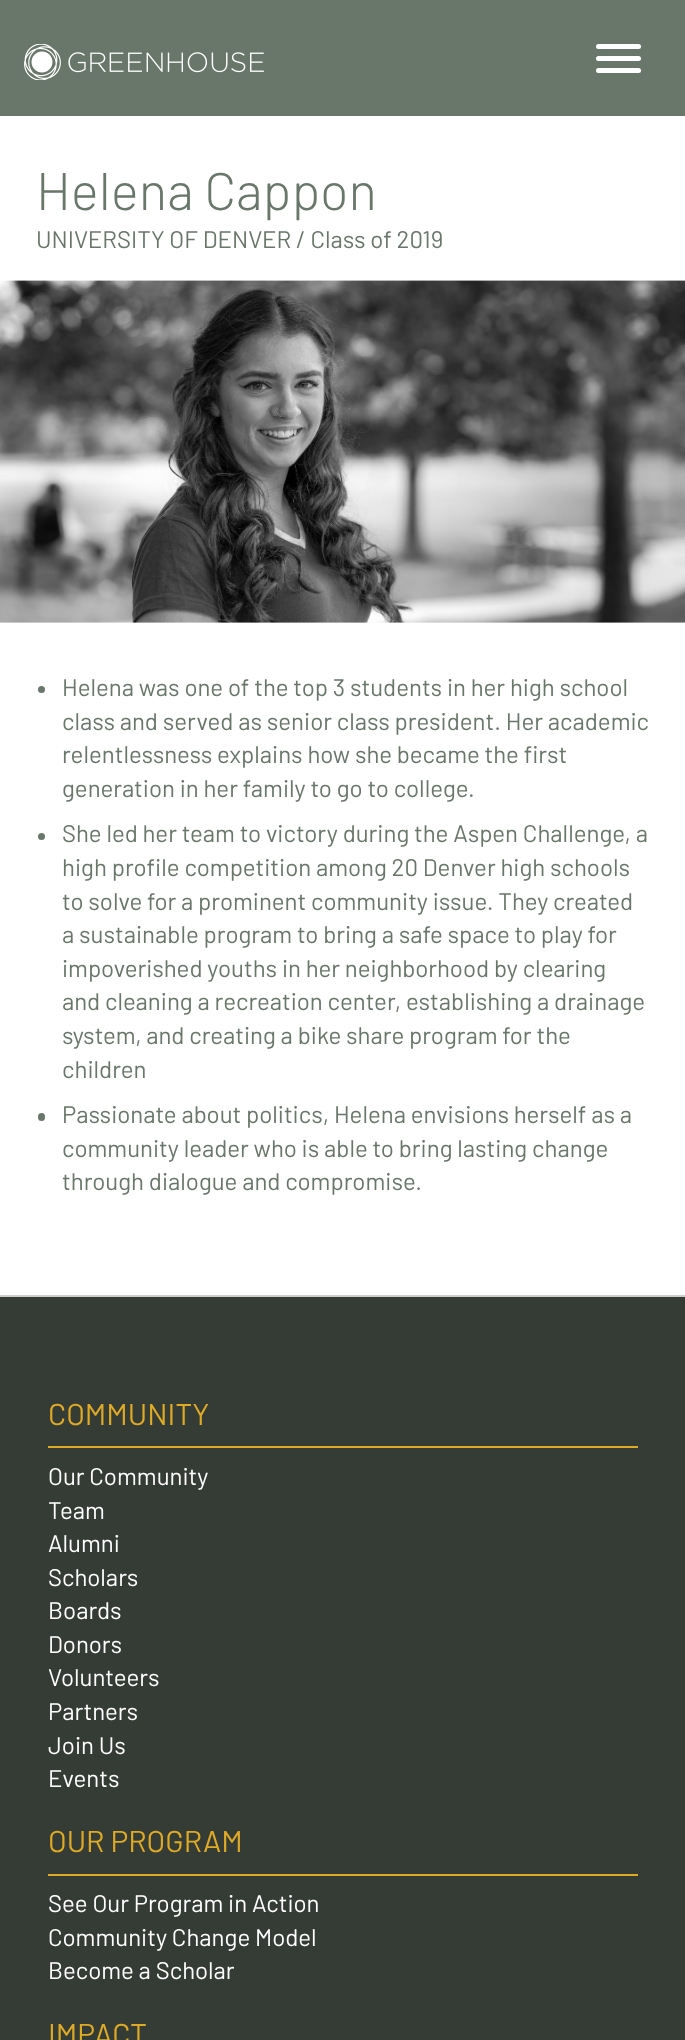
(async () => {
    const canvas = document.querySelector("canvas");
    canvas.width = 685;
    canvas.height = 2040;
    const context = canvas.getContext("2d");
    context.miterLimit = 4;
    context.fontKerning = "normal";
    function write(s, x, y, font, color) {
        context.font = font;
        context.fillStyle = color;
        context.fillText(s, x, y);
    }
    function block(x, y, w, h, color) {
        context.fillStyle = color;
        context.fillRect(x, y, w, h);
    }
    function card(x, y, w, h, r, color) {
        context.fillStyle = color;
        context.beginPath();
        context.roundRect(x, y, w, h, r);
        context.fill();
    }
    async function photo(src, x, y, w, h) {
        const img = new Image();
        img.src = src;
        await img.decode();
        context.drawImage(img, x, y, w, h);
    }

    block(0, 0, 685, 2040, "rgb(255, 255, 255)");
    block(0, 0, 685, 116, "rgb(104, 119, 105)");
    await photo("media/1.png", 24, 44, 240, 36);
    card(596, 44, 45, 5, 2.5, "rgb(255, 255, 255)");
    card(596, 56, 45, 5, 2.5, "rgb(255, 255, 255)");
    card(596, 68, 45, 5, 2.5, "rgb(255, 255, 255)");
    write("Helena Cappon", 36, 210, "300 52.75px Barlow", "rgb(104, 119, 105)");
    write("UNIVERSITY OF DENVER / Class of 2019", 36, 248, "24px Barlow", "rgb(104, 119, 105)");
    await photo("media/2.png", 0, 280, 685, 343);
    context.beginPath();
    context.arc(41.5, 689.5, 3.5, 0, Math.PI * 2);
    context.fill();
    write("Helena was one of the top 3 students in her high school", 62, 696, "24px Barlow", "rgb(104, 119, 105)");
    write("class and served as senior class president. Her academic", 62, 730, "24px Barlow", "rgb(104, 119, 105)");
    write("relentlessness explains how she became the first", 62, 763, "24px Barlow", "rgb(104, 119, 105)");
    write("generation in her family to go to college.", 62, 797, "24px Barlow", "rgb(104, 119, 105)");
    context.beginPath();
    context.arc(41.5, 836.5, 3.5, 0, Math.PI * 2);
    context.fill();
    write("She led her team to victory during the Aspen Challenge, a", 62, 842, "24px Barlow", "rgb(104, 119, 105)");
    write("high profile competition among 20 Denver high schools", 62, 876, "24px Barlow", "rgb(104, 119, 105)");
    write("to solve for a prominent community issue. They created", 62, 910, "24px Barlow", "rgb(104, 119, 105)");
    write("a sustainable program to bring a safe space to play for", 62, 943, "24px Barlow", "rgb(104, 119, 105)");
    write("impoverished youths in her neighborhood by clearing", 62, 977, "24px Barlow", "rgb(104, 119, 105)");
    write("and cleaning a recreation center, establishing a drainage", 62, 1010, "24px Barlow", "rgb(104, 119, 105)");
    write("system, and creating a bike share program for the", 62, 1044, "24px Barlow", "rgb(104, 119, 105)");
    write("children", 62, 1078, "24px Barlow", "rgb(104, 119, 105)");
    card(38, 1113, 7, 8, 3.5, "rgb(104, 119, 105)");
    write("Passionate about politics, Helena envisions herself as a", 62, 1123, "24px Barlow", "rgb(104, 119, 105)");
    write("community leader who is able to bring lasting change", 62, 1157, "24px Barlow", "rgb(104, 119, 105)");
    write("through dialogue and compromise.", 62, 1190, "24px Barlow", "rgb(104, 119, 105)");
    block(0, 1297, 685, 743, "rgb(53, 60, 54)");
    block(0, 1295, 685, 2, "rgb(204, 204, 204)");
    block(48, 1446, 590, 2, "rgb(223, 170, 37)");
    write("COMMUNITY", 48, 1425, "30px Barlow", "rgb(223, 170, 37)");
    write("Our Community", 48, 1485, "24px Barlow", "rgb(255, 255, 255)");
    write("Team", 48, 1519, "24px Barlow", "rgb(255, 255, 255)");
    write("Alumni", 48, 1552, "24px Barlow", "rgb(255, 255, 255)");
    write("Scholars", 48, 1586, "24px Barlow", "rgb(255, 255, 255)");
    write("Boards", 48, 1619, "24px Barlow", "rgb(255, 255, 255)");
    write("Donors", 48, 1653, "24px Barlow", "rgb(255, 255, 255)");
    write("Volunteers", 48, 1686, "24px Barlow", "rgb(255, 255, 255)");
    write("Partners", 48, 1720, "24px Barlow", "rgb(255, 255, 255)");
    write("Join Us", 48, 1754, "24px Barlow", "rgb(255, 255, 255)");
    write("Events", 48, 1787, "24px Barlow", "rgb(255, 255, 255)");
    block(48, 1874, 590, 2, "rgb(223, 170, 37)");
    write("OUR PROGRAM", 48, 1852, "30px Barlow", "rgb(223, 170, 37)");
    write("See Our Program in Action", 48, 1912, "24px Barlow", "rgb(255, 255, 255)");
    write("Community Change Model", 48, 1946, "24px Barlow", "rgb(255, 255, 255)");
    write("Become a Scholar", 48, 1979, "24px Barlow", "rgb(255, 255, 255)");
    write("IMPACT", 48, 2045, "30px Barlow", "rgb(223, 170, 37)");
})();
